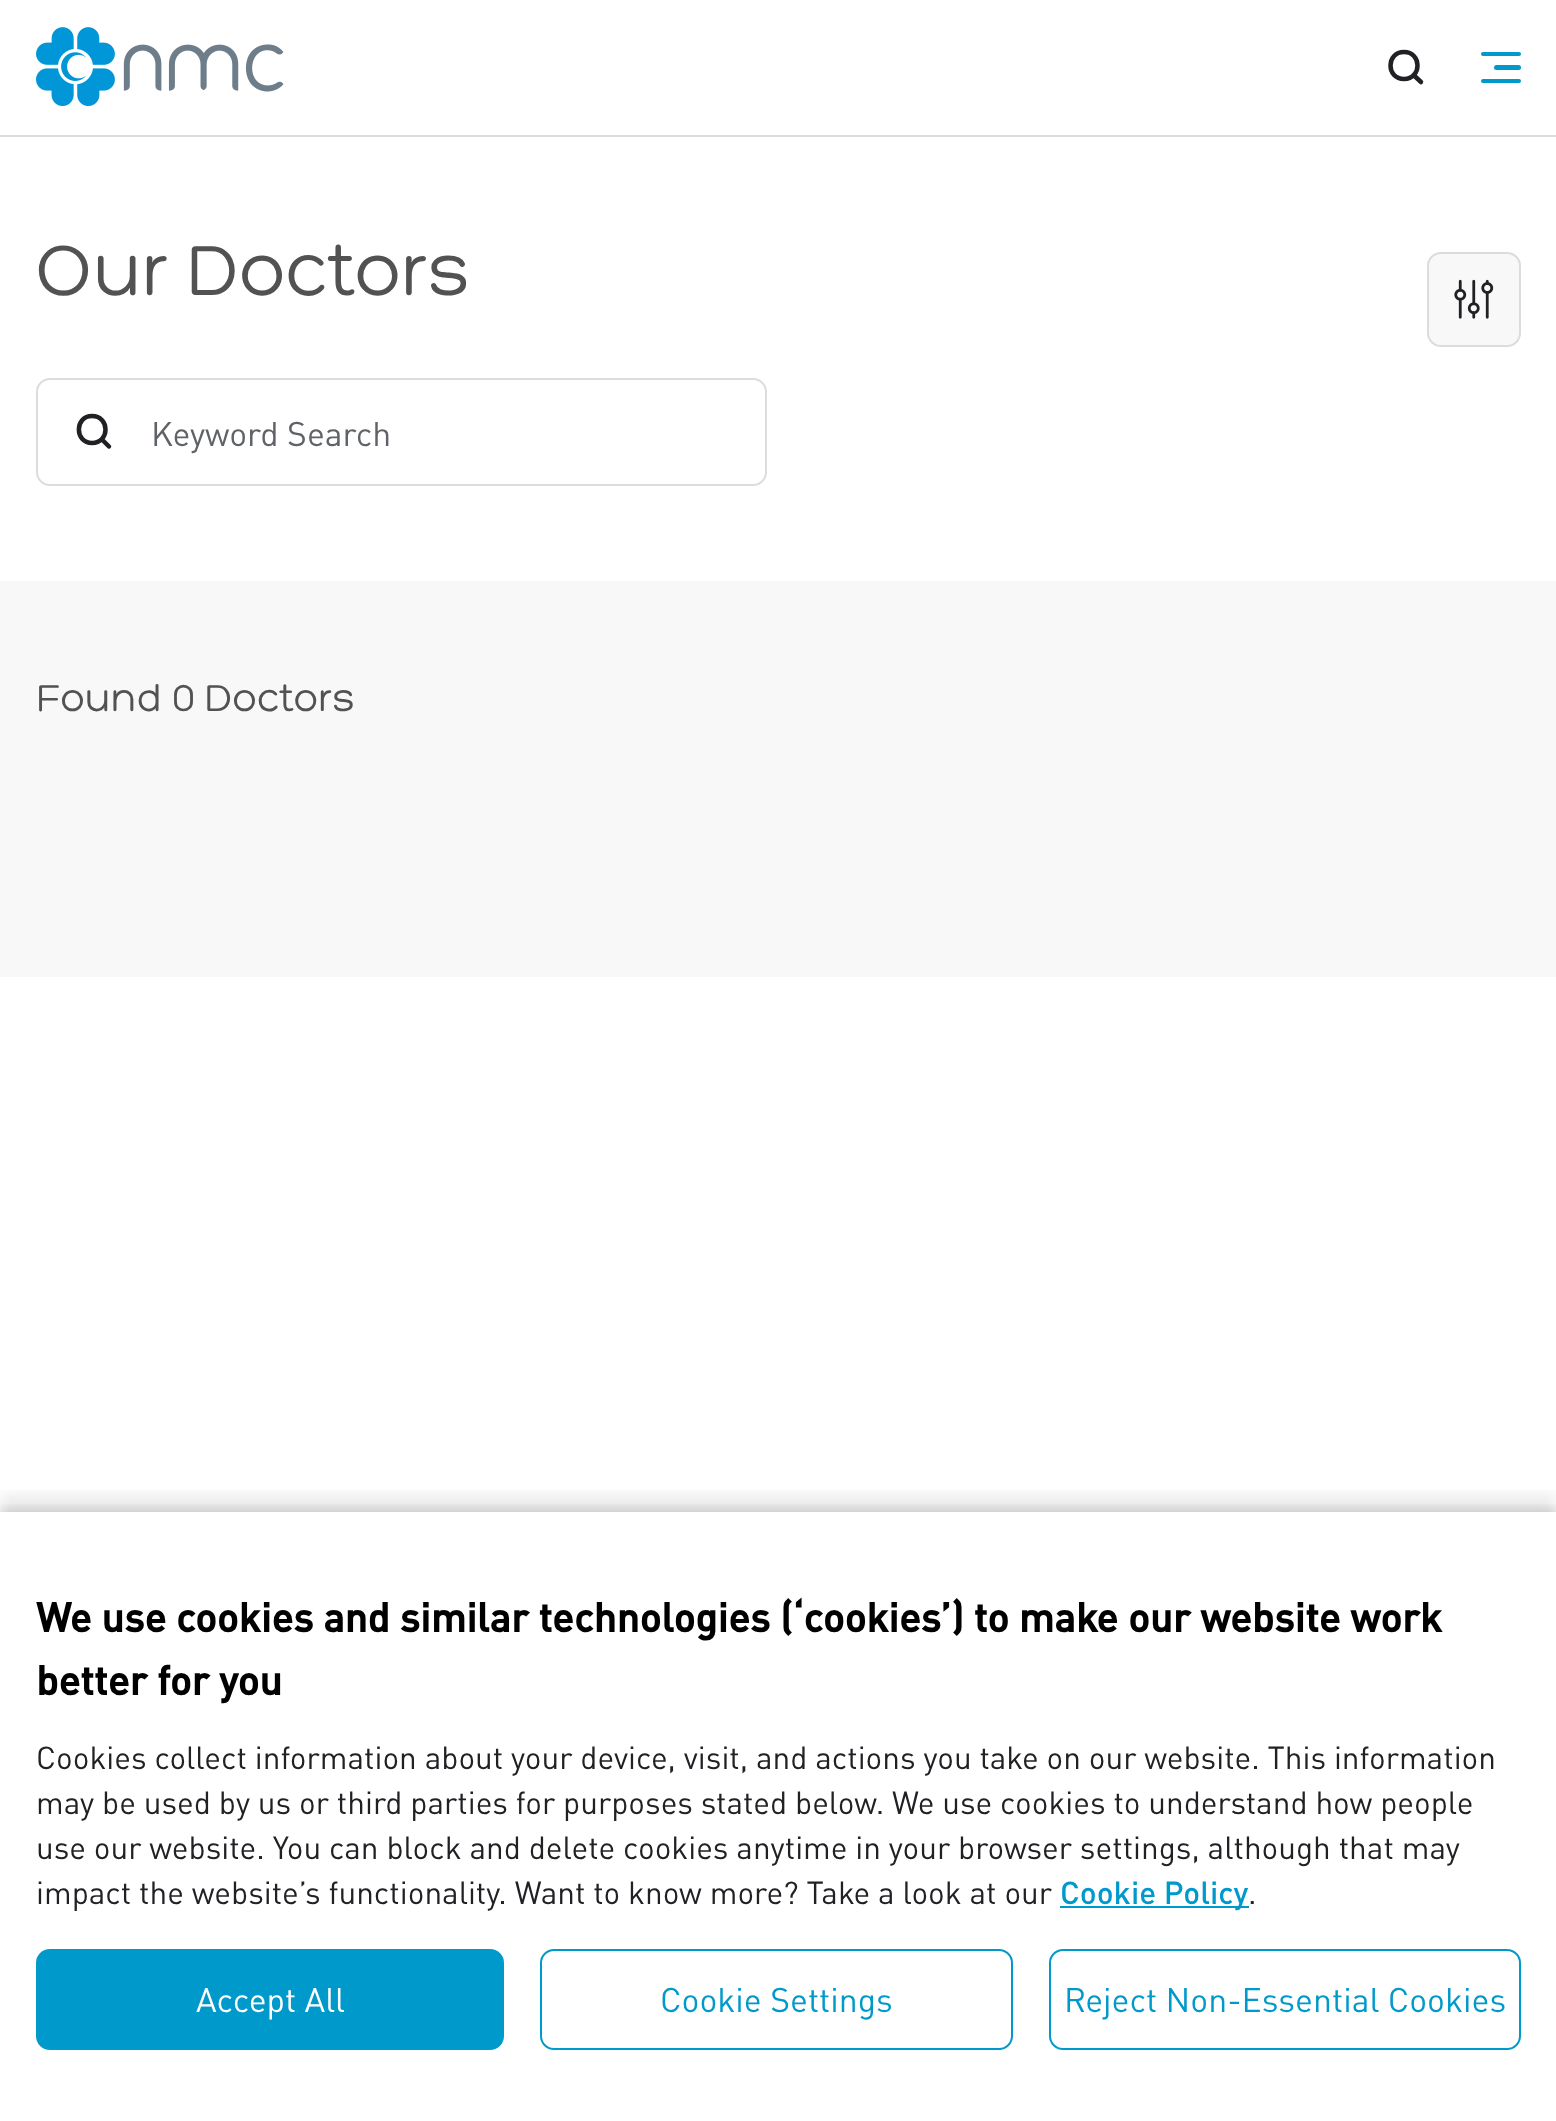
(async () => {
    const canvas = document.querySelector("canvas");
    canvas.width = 1556;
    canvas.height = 2121;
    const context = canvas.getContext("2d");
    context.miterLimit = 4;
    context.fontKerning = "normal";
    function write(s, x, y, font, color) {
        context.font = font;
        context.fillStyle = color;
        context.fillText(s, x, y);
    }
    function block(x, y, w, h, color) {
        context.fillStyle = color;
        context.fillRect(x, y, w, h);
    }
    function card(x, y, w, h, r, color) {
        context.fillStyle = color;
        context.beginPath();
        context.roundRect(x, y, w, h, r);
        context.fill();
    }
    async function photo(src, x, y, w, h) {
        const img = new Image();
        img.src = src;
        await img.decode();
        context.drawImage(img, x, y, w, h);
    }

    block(0, 0, 1556, 2121, "rgb(255, 255, 255)");
    block(0, 135, 1556, 2, "rgb(220, 220, 220)");
    await photo("media/1.png", 36, 27, 248, 80);
    context.beginPath();
    context.moveTo(1404, 79);
    context.bezierCurveTo(1422, 79, 1422, 52, 1404, 52);
    context.bezierCurveTo(1386, 52, 1386, 79, 1404, 79);
    context.closePath();
    context.moveTo(1421, 82);
    context.lineTo(1413.5, 75);
    context.strokeStyle = "rgb(32, 33, 36)";
    context.lineWidth = 4.5;
    context.lineCap = "round";
    context.lineJoin = "round";
    context.stroke();
    card(1481, 52, 40, 4, 2, "rgb(0, 153, 204)");
    card(1494, 65, 27, 5, 2.5, "rgb(0, 153, 204)");
    card(1481, 79, 40, 4, 2, "rgb(0, 153, 204)");
    write("Our Doctors", 36, 295, "76.5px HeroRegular", "rgb(82, 82, 82)");
    context.fillStyle = "rgb(248, 248, 248)";
    context.beginPath();
    context.roundRect(1428, 253, 92, 93, 13);
    context.fill();
    context.strokeStyle = "rgb(220, 220, 220)";
    context.lineWidth = 2;
    context.lineJoin = "miter";
    context.stroke();
    await photo("media/2.png", 1454, 279, 40, 40);
    context.beginPath();
    context.roundRect(37, 379, 729, 106, 13);
    context.stroke();
    context.beginPath();
    context.moveTo(92, 443);
    context.bezierCurveTo(110, 443, 110, 416, 92, 416);
    context.bezierCurveTo(74.5, 416, 74.5, 443, 92, 443);
    context.closePath();
    context.moveTo(109, 446.5);
    context.lineTo(102, 439.5);
    context.strokeStyle = "rgb(32, 33, 36)";
    context.lineWidth = 4.5;
    context.lineJoin = "round";
    context.stroke();
    card(115, 380, 650, 104, 14, "rgb(255, 255, 255)");
    write("Keyword Search", 151, 446, "33.75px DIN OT", "rgb(95, 99, 104)");
    block(0, 581, 1556, 396, "rgb(248, 248, 248)");
    write("Found 0 Doctors", 36, 711, "40.5px HeroRegular", "rgb(82, 82, 82)");
    context.save();
    context.beginPath();
    context.rect(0, 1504, 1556, 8);
    context.clip();
    context.fillStyle = "rgba(0, 0, 0, 0.1)";
    context.filter = "blur(4.5px)";
    context.beginPath();
    context.rect(0, 1508, 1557, 609);
    context.fill();
    context.filter = "none";
    context.restore();
    context.save();
    context.beginPath();
    context.rect(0, 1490, 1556, 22);
    context.clip();
    context.fillStyle = "rgba(0, 0, 0, 0.09)";
    context.filter = "blur(8px)";
    context.beginPath();
    context.rect(0, 1496, 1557, 610);
    context.fill();
    context.filter = "none";
    context.restore();
    write("We use cookies and similar technologies (‘cookies’) to make our website work", 36, 1632, "bold 40.5px DIN OT", "rgb(0, 0, 0)");
    write("better for you", 36, 1695, "bold 40.5px DIN OT", "rgb(0, 0, 0)");
    write("Cookies collect information about your device, visit, and actions you take on our website. This information", 36, 1769, "31.5px DIN OT", "rgb(32, 33, 36)");
    write("may be used by us or third parties for purposes stated below. We use cookies to understand how people", 36, 1814, "31.5px DIN OT", "rgb(32, 33, 36)");
    write("use our website. You can block and delete cookies anytime in your browser settings, although that may", 36, 1859, "31.5px DIN OT", "rgb(32, 33, 36)");
    write("impact the website’s functionality. Want to know more? Take a look at our", 36, 1904, "31.5px DIN OT", "rgb(32, 33, 36)");
    block(1060, 1906, 189, 2, "rgb(0, 153, 204)");
    write("Cookie Policy", 1060, 1904, "500 31.5px DIN OT", "rgb(0, 153, 204)");
    write(".", 1248, 1904, "31.5px DIN OT", "rgb(32, 33, 36)");
    card(36, 1949, 468, 101, 14, "rgb(0, 153, 204)");
    write("Accept All", 196, 2012, "33.75px DIN OT", "rgb(255, 255, 255)");
    context.beginPath();
    context.roundRect(541, 1950, 471, 99, 13);
    context.strokeStyle = "rgb(0, 153, 204)";
    context.lineWidth = 2;
    context.lineJoin = "miter";
    context.stroke();
    write("Cookie Settings", 660, 2012, "33.75px DIN OT", "rgb(0, 153, 204)");
    context.beginPath();
    context.roundRect(1050, 1950, 470, 99, 13);
    context.stroke();
    write("Reject Non-Essential Cookies", 1064, 2012, "33.75px DIN OT", "rgb(0, 153, 204)");
})();
